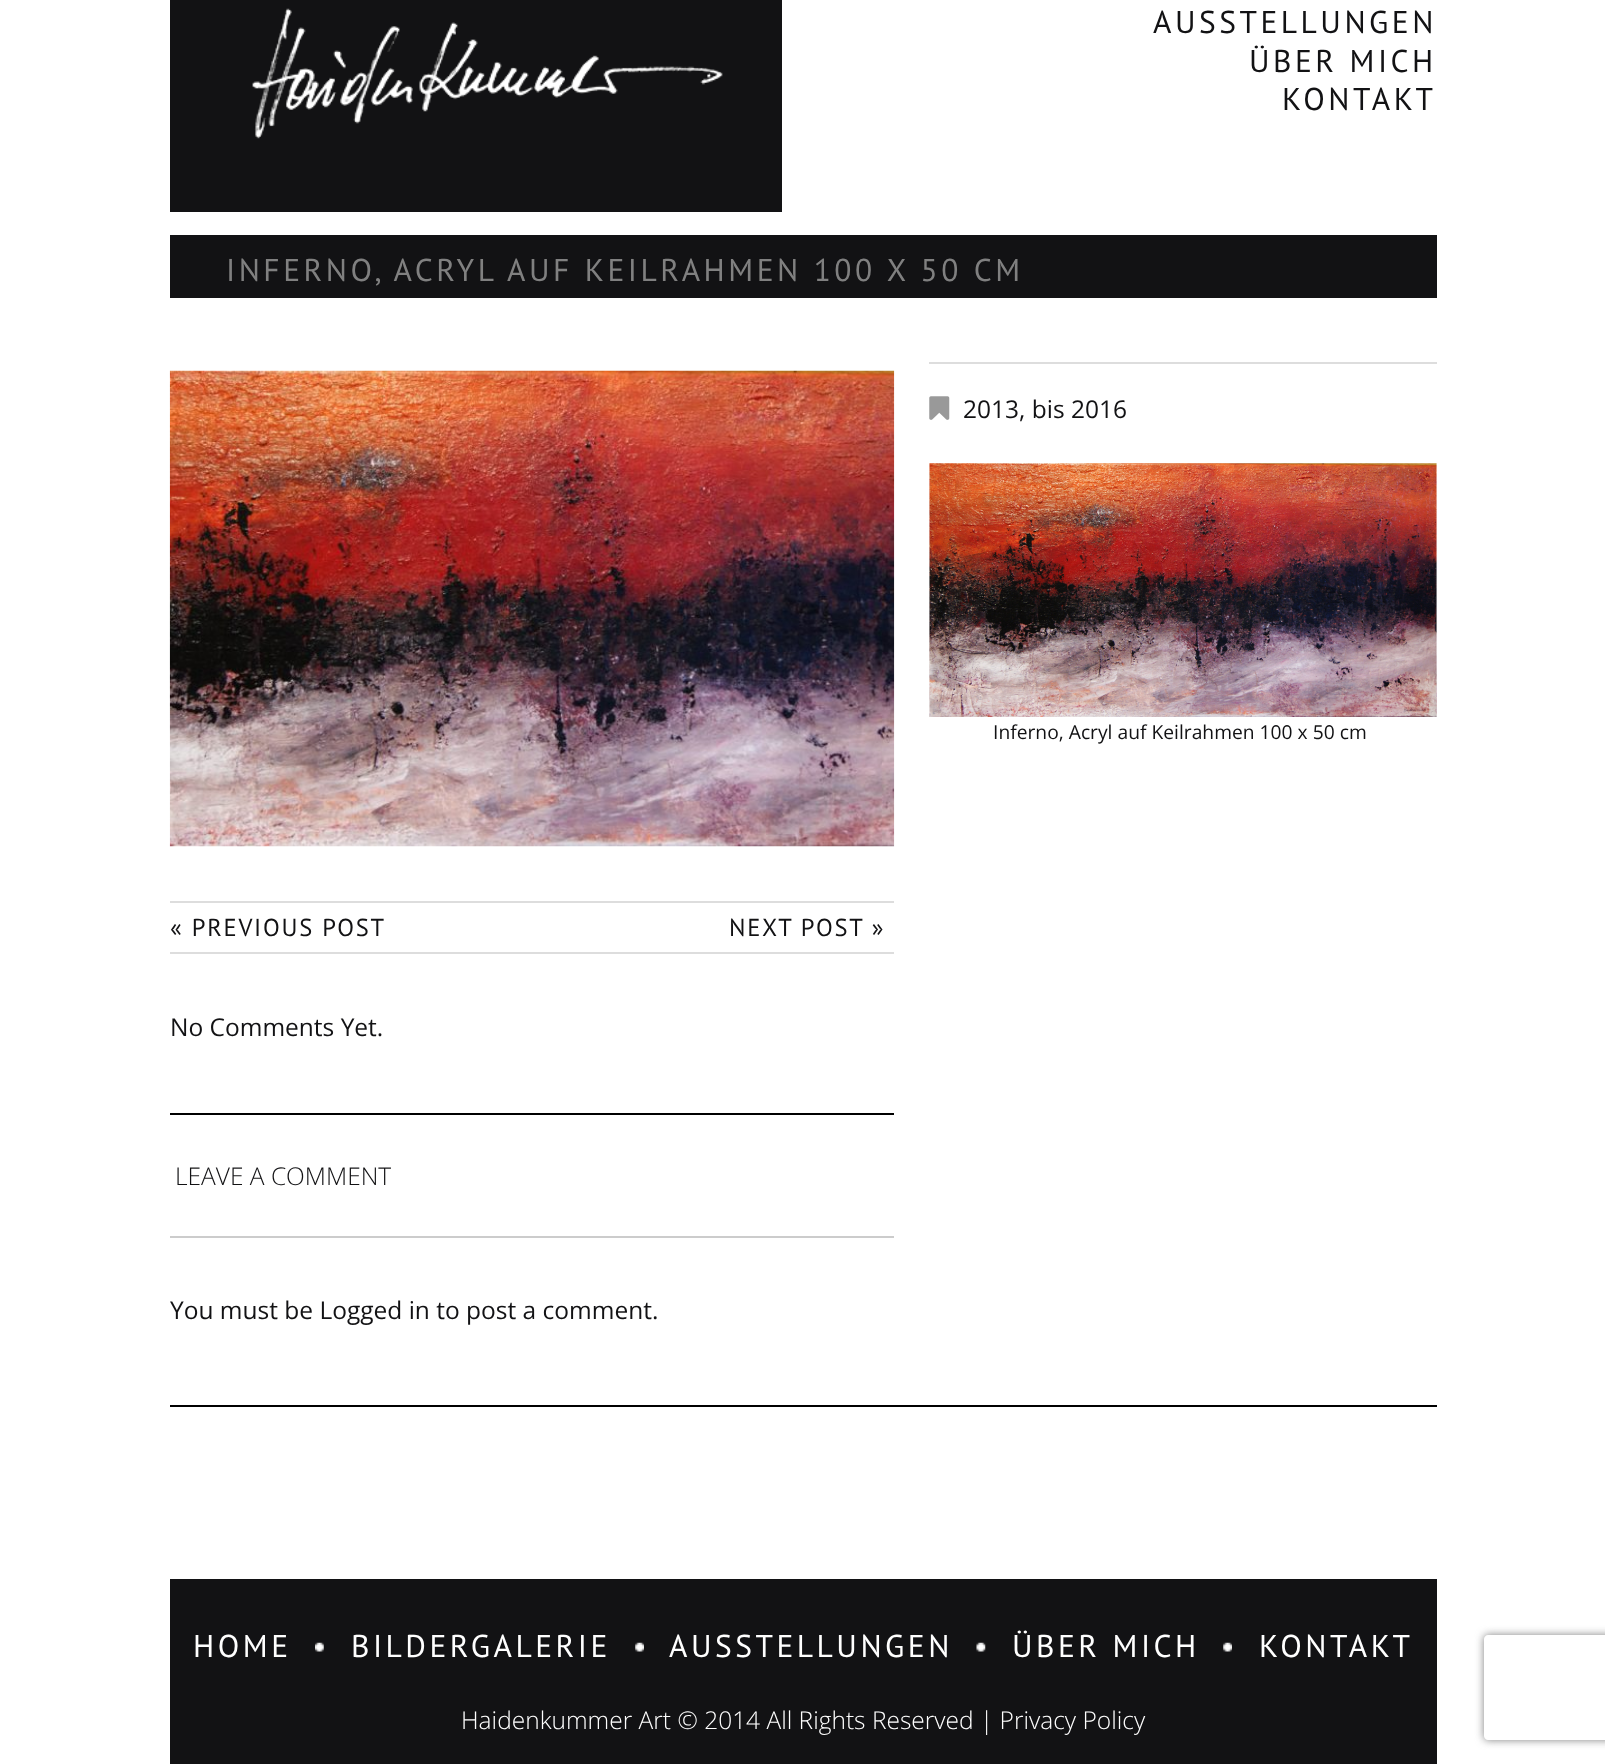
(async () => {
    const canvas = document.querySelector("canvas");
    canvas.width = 1605;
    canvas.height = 1764;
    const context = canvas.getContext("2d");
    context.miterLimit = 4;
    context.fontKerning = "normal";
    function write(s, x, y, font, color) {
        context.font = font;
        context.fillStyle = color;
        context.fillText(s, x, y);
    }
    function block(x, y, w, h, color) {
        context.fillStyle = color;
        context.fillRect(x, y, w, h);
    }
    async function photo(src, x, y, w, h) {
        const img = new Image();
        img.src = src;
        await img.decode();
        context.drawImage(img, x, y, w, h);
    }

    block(0, 0, 1605, 1764, "rgb(255, 255, 255)");
    block(170, 0, 612, 212, "rgb(18, 18, 20)");
    await photo("media/1.png", 252, 8, 471, 131);
    context.letterSpacing = "3.5px";
    write("AUSSTELLUNGEN", 1153, 33, "31.5px PT Sans", "rgb(18, 18, 20)");
    write("ÜBER MICH", 1249, 72, "31.5px PT Sans", "rgb(18, 18, 20)");
    write("KONTAKT", 1282, 110, "31.5px PT Sans", "rgb(18, 18, 20)");
    block(170, 235, 1267, 63, "rgb(18, 18, 20)");
    write("INFERNO, ACRYL AUF KEILRAHMEN 100 X 50 CM", 226, 281, "31.5px PT Sans", "rgb(128, 128, 128)");
    block(929, 362, 508, 2, "rgb(221, 221, 221)");
    await photo("media/2.png", 929, 396, 21, 24);
    context.letterSpacing = "0px";
    write("2013, bis 2016", 963, 418, "24.5px Open Sans", "rgb(18, 18, 20)");
    await photo("media/3.png", 929, 463, 508, 254);
    write("Inferno, Acryl auf Keilrahmen 100 x 50 cm", 993, 739, "19.25px Open Sans", "rgb(18, 18, 20)");
    await photo("media/4.png", 169, 370, 726, 477);
    block(170, 901, 724, 2, "rgb(221, 221, 221)");
    block(170, 952, 724, 2, "rgb(221, 221, 221)");
    context.letterSpacing = "1.75px";
    write("« PREVIOUS POST", 170, 936, "24.5px PT Sans", "rgb(18, 18, 20)");
    write("NEXT POST »", 729, 936, "24.5px PT Sans", "rgb(18, 18, 20)");
    context.letterSpacing = "0px";
    write("No Comments Yet.", 170, 1036, "24.5px Open Sans", "rgb(18, 18, 20)");
    block(170, 1113, 724, 2, "rgb(0, 0, 0)");
    block(170, 1236, 724, 2, "rgb(204, 204, 204)");
    write("LEAVE A COMMENT", 175, 1185, "300 24.5px Open Sans", "rgb(18, 18, 20)");
    write("You must be Logged in to post a comment.", 170, 1319, "24.5px Open Sans", "rgb(18, 18, 20)");
    block(170, 1405, 1267, 2, "rgb(0, 0, 0)");
    block(170, 1579, 1267, 185, "rgb(18, 18, 20)");
    context.letterSpacing = "3.5px";
    write("HOME", 193, 1657, "31.5px PT Sans", "rgb(255, 255, 255)");
    await photo("media/5.png", 315, 1642, 9, 10);
    write("BILDERGALERIE", 351, 1657, "31.5px PT Sans", "rgb(255, 255, 255)");
    await photo("media/6.png", 635, 1642, 9, 10);
    write("AUSSTELLUNGEN", 669, 1657, "31.5px PT Sans", "rgb(255, 255, 255)");
    await photo("media/7.png", 976, 1642, 10, 10);
    write("ÜBER MICH", 1012, 1657, "31.5px PT Sans", "rgb(255, 255, 255)");
    await photo("media/6.png", 1223, 1642, 9, 10);
    write("KONTAKT", 1259, 1657, "31.5px PT Sans", "rgb(255, 255, 255)");
    context.letterSpacing = "0px";
    write("Haidenkummer Art © 2014 All Rights Reserved | Privacy Policy", 461, 1729, "300 24.5px Open Sans", "rgb(255, 255, 255)");
    context.save();
    context.beginPath();
    context.moveTo(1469, 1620);
    context.lineTo(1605, 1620);
    context.lineTo(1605, 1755);
    context.lineTo(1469, 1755);
    context.closePath();
    context.moveTo(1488, 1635);
    context.lineTo(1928, 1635);
    context.bezierCurveTo(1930, 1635, 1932, 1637, 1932, 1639);
    context.lineTo(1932, 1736);
    context.bezierCurveTo(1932, 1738, 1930, 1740, 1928, 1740);
    context.lineTo(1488, 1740);
    context.bezierCurveTo(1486, 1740, 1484, 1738, 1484, 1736);
    context.lineTo(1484, 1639);
    context.bezierCurveTo(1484, 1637, 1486, 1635, 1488, 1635);
    context.closePath();
    context.clip("evenodd");
    context.fillStyle = "rgb(128, 128, 128)";
    context.filter = "blur(4.5px)";
    context.beginPath();
    context.roundRect(1484, 1635, 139, 105, 4);
    context.fill();
    context.filter = "none";
    context.restore();
})();
